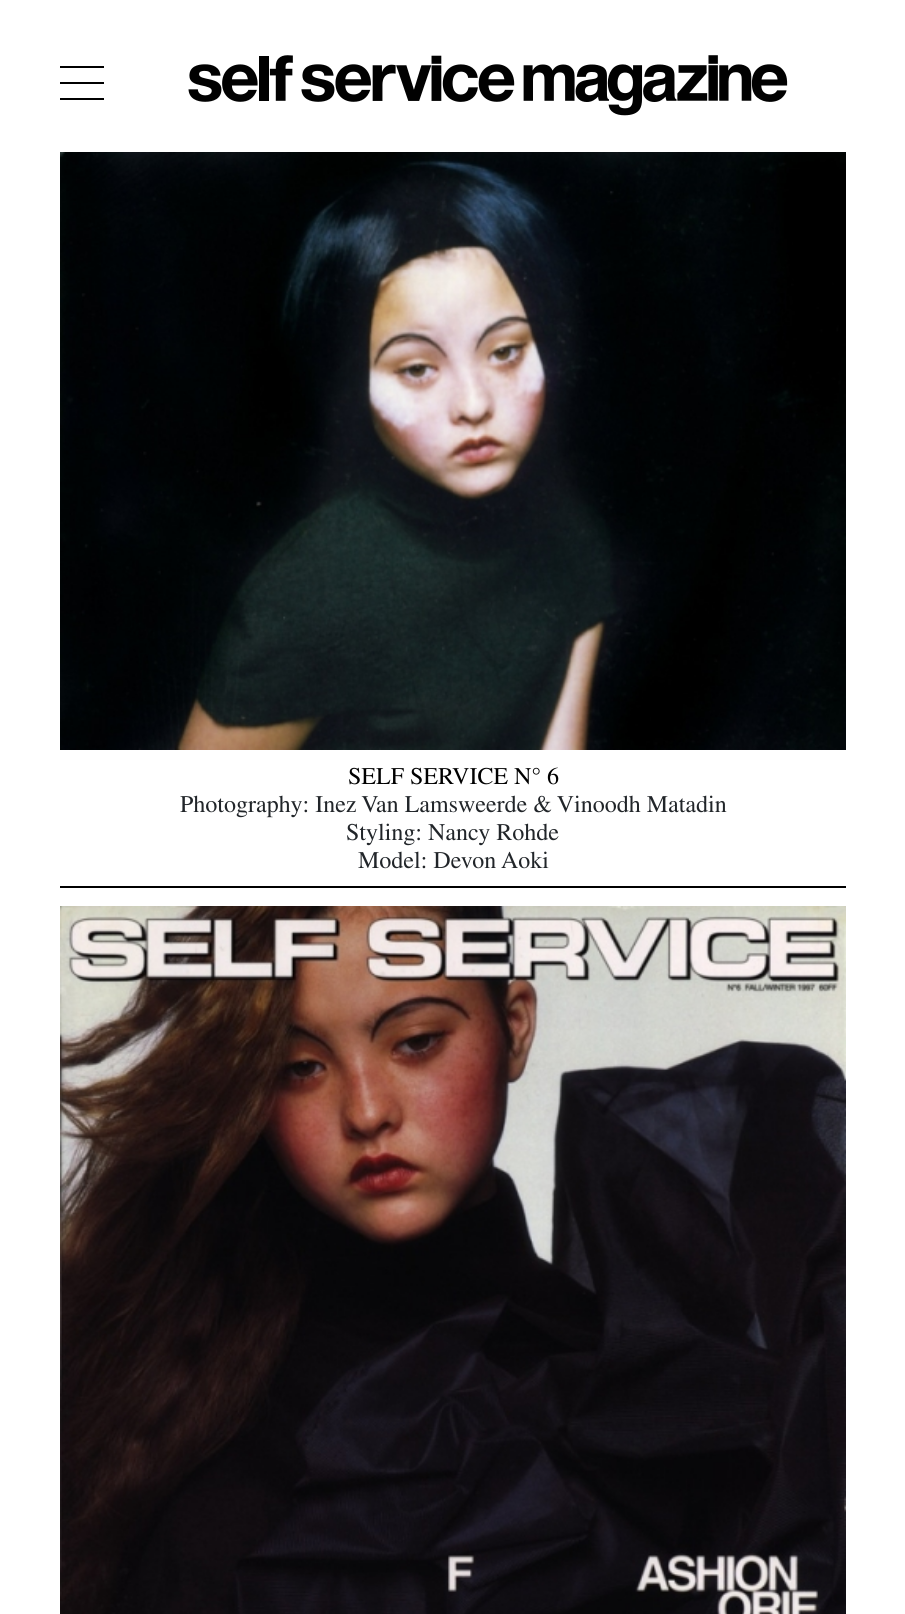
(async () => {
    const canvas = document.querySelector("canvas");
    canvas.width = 905;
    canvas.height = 1614;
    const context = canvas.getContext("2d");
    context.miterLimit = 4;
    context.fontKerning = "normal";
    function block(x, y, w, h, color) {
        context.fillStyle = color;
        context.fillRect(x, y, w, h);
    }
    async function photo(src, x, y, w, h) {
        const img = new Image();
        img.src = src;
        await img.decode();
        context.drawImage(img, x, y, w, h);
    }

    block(0, 0, 905, 1614, "rgb(255, 255, 255)");
    block(60, 66, 44, 2, "rgb(0, 0, 0)");
    block(60, 82, 44, 2, "rgb(0, 0, 0)");
    block(60, 98, 44, 2, "rgb(0, 0, 0)");
    await photo("media/1.png", 188, 55, 600, 61);
    await photo("media/2.png", 60, 152, 786, 598);
    await photo("media/3.png", 349, 767, 210, 18);
    await photo("media/4.png", 180, 795, 547, 23);
    await photo("media/5.png", 347, 823, 212, 23);
    await photo("media/6.png", 358, 851, 191, 18);
    block(60, 886, 786, 2, "rgb(0, 0, 0)");
    await photo("media/7.png", 60, 906, 786, 708);
})();
